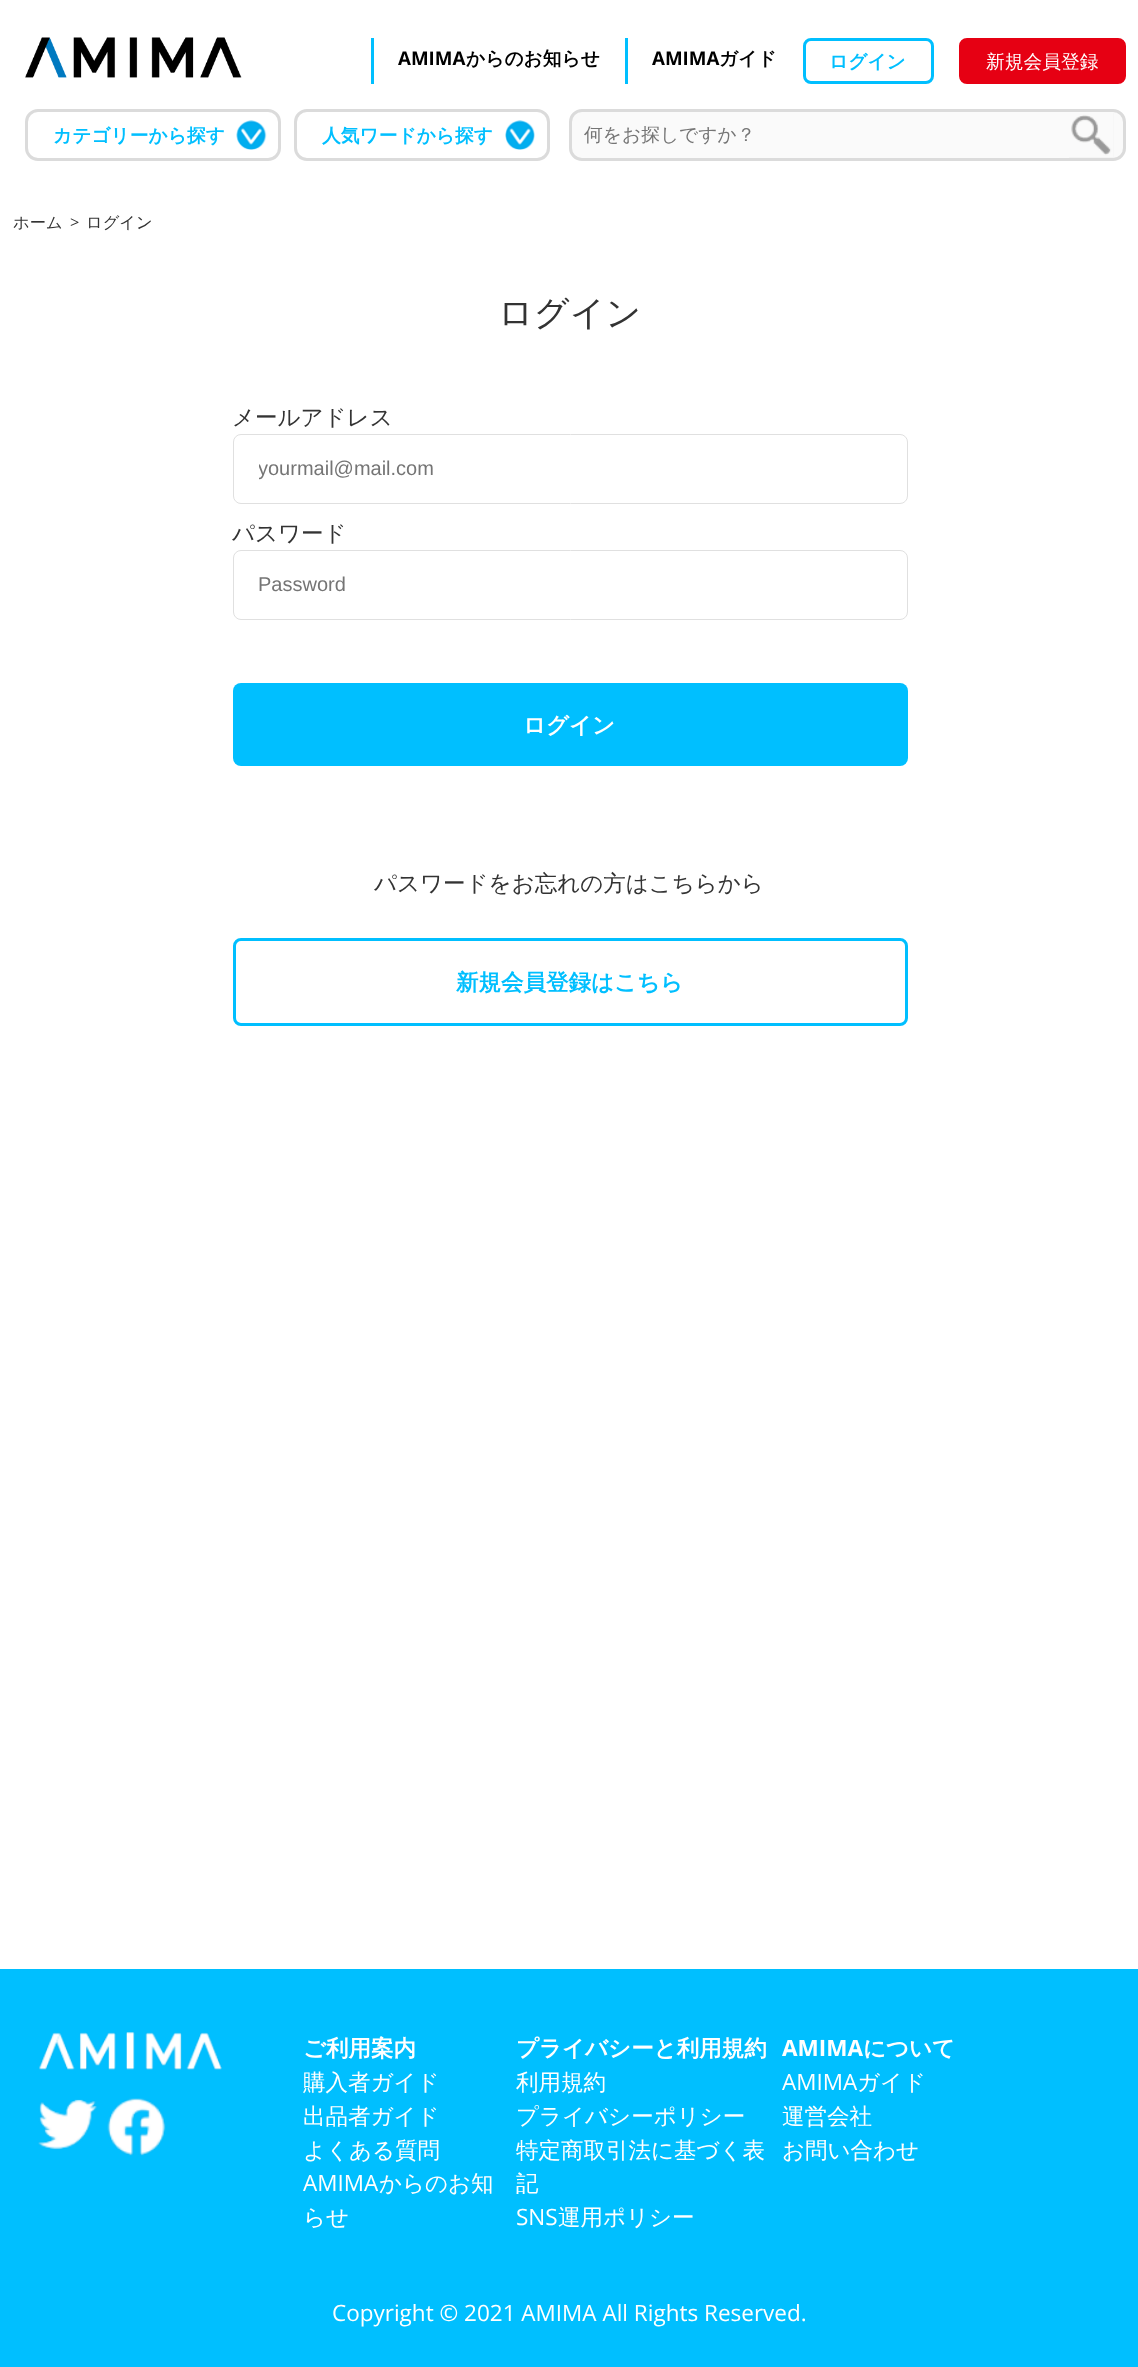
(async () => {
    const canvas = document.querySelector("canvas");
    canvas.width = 1138;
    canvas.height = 2367;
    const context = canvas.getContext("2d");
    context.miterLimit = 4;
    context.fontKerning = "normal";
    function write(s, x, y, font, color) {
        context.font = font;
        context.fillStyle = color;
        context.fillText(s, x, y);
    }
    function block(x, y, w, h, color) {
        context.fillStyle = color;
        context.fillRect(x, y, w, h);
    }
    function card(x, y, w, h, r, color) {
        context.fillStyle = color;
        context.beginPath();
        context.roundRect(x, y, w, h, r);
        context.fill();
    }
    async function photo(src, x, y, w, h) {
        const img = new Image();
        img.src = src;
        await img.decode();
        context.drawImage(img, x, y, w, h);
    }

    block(0, 0, 1138, 2367, "rgb(255, 255, 255)");
    await photo("media/1.png", 25, 37, 217, 41);
    block(371, 38, 3, 46, "rgb(0, 191, 255)");
    write("AMIMA", 398, 65, "bold 18.75px Open Sans", "rgb(0, 0, 0)");
    write("からのお知らせ", 466, 65, "bold 18.75px WenQuanYi Zen Hei", "rgb(0, 0, 0)");
    block(625, 38, 3, 46, "rgb(0, 191, 255)");
    write("AMIMA", 652, 65, "bold 18.75px Open Sans", "rgb(0, 0, 0)");
    write("ガイド", 719, 65, "bold 18.75px WenQuanYi Zen Hei", "rgb(0, 0, 0)");
    context.beginPath();
    context.roundRect(804.5, 39.5, 128, 43, 6.5);
    context.strokeStyle = "rgb(0, 191, 255)";
    context.lineWidth = 3;
    context.stroke();
    write("ログイン", 829, 68, "bold 18.75px WenQuanYi Zen Hei", "rgb(0, 191, 255)");
    context.fillStyle = "rgb(230, 0, 19)";
    context.beginPath();
    context.roundRect(960.5, 39.5, 164, 43, 6.5);
    context.fill();
    context.strokeStyle = "rgb(230, 0, 19)";
    context.stroke();
    write("新規会員登録", 986, 68, "500 18.75px WenQuanYi Zen Hei", "rgb(255, 255, 255)");
    context.beginPath();
    context.roundRect(26.5, 110.5, 253, 49, 11.5);
    context.strokeStyle = "rgb(219, 219, 219)";
    context.stroke();
    write("カテゴリーから探す", 53, 142, "bold 18.75px WenQuanYi Zen Hei", "rgb(0, 191, 255)");
    await photo("media/2.png", 236, 120, 31, 30);
    context.beginPath();
    context.roundRect(295.5, 110.5, 253, 49, 11.5);
    context.stroke();
    write("人気ワードから探す", 322, 142, "bold 18.75px WenQuanYi Zen Hei", "rgb(0, 191, 255)");
    await photo("media/3.png", 505, 120, 30, 30);
    context.fillStyle = "rgb(250, 250, 250)";
    context.beginPath();
    context.roundRect(570.5, 110.5, 554, 49, 11.5);
    context.fill();
    context.stroke();
    write("何をお探しですか？", 584, 141, "500 18.75px WenQuanYi Zen Hei", "rgb(117, 117, 117)");
    block(1069, 113, 45, 45, "rgb(239, 239, 239)");
    await photo("media/4.png", 1069, 113, 45, 45);
    write("ホーム", 13, 228, "500 16.25px WenQuanYi Zen Hei", "rgb(51, 51, 51)");
    write(">", 70, 228, "16.25px Open Sans", "rgb(51, 51, 51)");
    write("ログイン", 86, 228, "500 16.25px WenQuanYi Zen Hei", "rgb(51, 51, 51)");
    write("ログイン", 498, 325, "500 35px WenQuanYi Zen Hei", "rgb(51, 51, 51)");
    write("メールアドレス", 232, 425, "500 22.5px WenQuanYi Zen Hei", "rgb(51, 51, 51)");
    context.beginPath();
    context.roundRect(233.5, 434.5, 674, 69, 7.5);
    context.strokeStyle = "rgb(224, 224, 224)";
    context.lineWidth = 1;
    context.stroke();
    context.save();
    context.beginPath();
    context.rect(259, 458, 622, 22);
    context.clip();
    write("yourmail@mail.com", 258, 475, "20px Liberation Sans", "rgb(117, 117, 117)");
    context.restore();
    write("パスワード", 232, 541, "500 22.5px WenQuanYi Zen Hei", "rgb(51, 51, 51)");
    context.beginPath();
    context.roundRect(233.5, 550.5, 674, 69, 7.5);
    context.stroke();
    write("Password", 258, 591, "20px Liberation Sans", "rgb(117, 117, 117)");
    card(233, 683, 675, 83, 8, "rgb(0, 191, 255)");
    write("ログイン", 523, 733, "bold 22.5px WenQuanYi Zen Hei", "rgb(255, 255, 255)");
    write("パスワードをお忘れの方はこちらから", 374, 891, "500 22.5px WenQuanYi Zen Hei", "rgb(51, 51, 51)");
    context.beginPath();
    context.roundRect(234.5, 939.5, 672, 85, 6.5);
    context.strokeStyle = "rgb(0, 191, 255)";
    context.lineWidth = 3;
    context.stroke();
    write("新規会員登録はこちら", 456, 990, "bold 22.5px WenQuanYi Zen Hei", "rgb(0, 191, 255)");
    block(0, 1969, 1138, 398, "rgb(0, 191, 255)");
    await photo("media/5.png", 39, 2032, 183, 38);
    await photo("media/6.png", 38, 2099, 59, 51);
    await photo("media/7.png", 107, 2098, 59, 58);
    write("ご利用案内", 303, 2056, "bold 22.5px WenQuanYi Zen Hei", "rgb(255, 255, 255)");
    write("購入者ガイド", 303, 2090, "500 22.5px WenQuanYi Zen Hei", "rgb(255, 255, 255)");
    write("出品者ガイド", 303, 2124, "500 22.5px WenQuanYi Zen Hei", "rgb(255, 255, 255)");
    write("よくある質問", 303, 2158, "500 22.5px WenQuanYi Zen Hei", "rgb(255, 255, 255)");
    write("AMIMA", 303, 2191, "22.5px Open Sans", "rgb(255, 255, 255)");
    write("からのお知", 379, 2191, "500 22.5px WenQuanYi Zen Hei", "rgb(255, 255, 255)");
    write("らせ", 303, 2225, "500 22.5px WenQuanYi Zen Hei", "rgb(255, 255, 255)");
    write("プライバシーと利用規約", 516, 2056, "bold 22.5px WenQuanYi Zen Hei", "rgb(255, 255, 255)");
    write("利用規約", 516, 2090, "500 22.5px WenQuanYi Zen Hei", "rgb(255, 255, 255)");
    write("プライバシーポリシー", 516, 2124, "500 22.5px WenQuanYi Zen Hei", "rgb(255, 255, 255)");
    write("特定商取引法に基づく表", 516, 2158, "500 22.5px WenQuanYi Zen Hei", "rgb(255, 255, 255)");
    write("記", 516, 2191, "500 22.5px WenQuanYi Zen Hei", "rgb(255, 255, 255)");
    write("SNS", 516, 2225, "22.5px Open Sans", "rgb(255, 255, 255)");
    write("運用ポリシー", 558, 2225, "500 22.5px WenQuanYi Zen Hei", "rgb(255, 255, 255)");
    write("AMIMA", 782, 2056, "bold 22.5px Open Sans", "rgb(255, 255, 255)");
    write("について", 863, 2056, "bold 22.5px WenQuanYi Zen Hei", "rgb(255, 255, 255)");
    write("AMIMA", 782, 2090, "22.5px Open Sans", "rgb(255, 255, 255)");
    write("ガイド", 857, 2090, "500 22.5px WenQuanYi Zen Hei", "rgb(255, 255, 255)");
    write("運営会社", 782, 2124, "500 22.5px WenQuanYi Zen Hei", "rgb(255, 255, 255)");
    write("お問い合わせ", 782, 2158, "500 22.5px WenQuanYi Zen Hei", "rgb(255, 255, 255)");
    write("Copyright © 2021 AMIMA All Rights Reserved.", 332, 2321, "22.5px Open Sans", "rgb(255, 255, 255)");
})();
